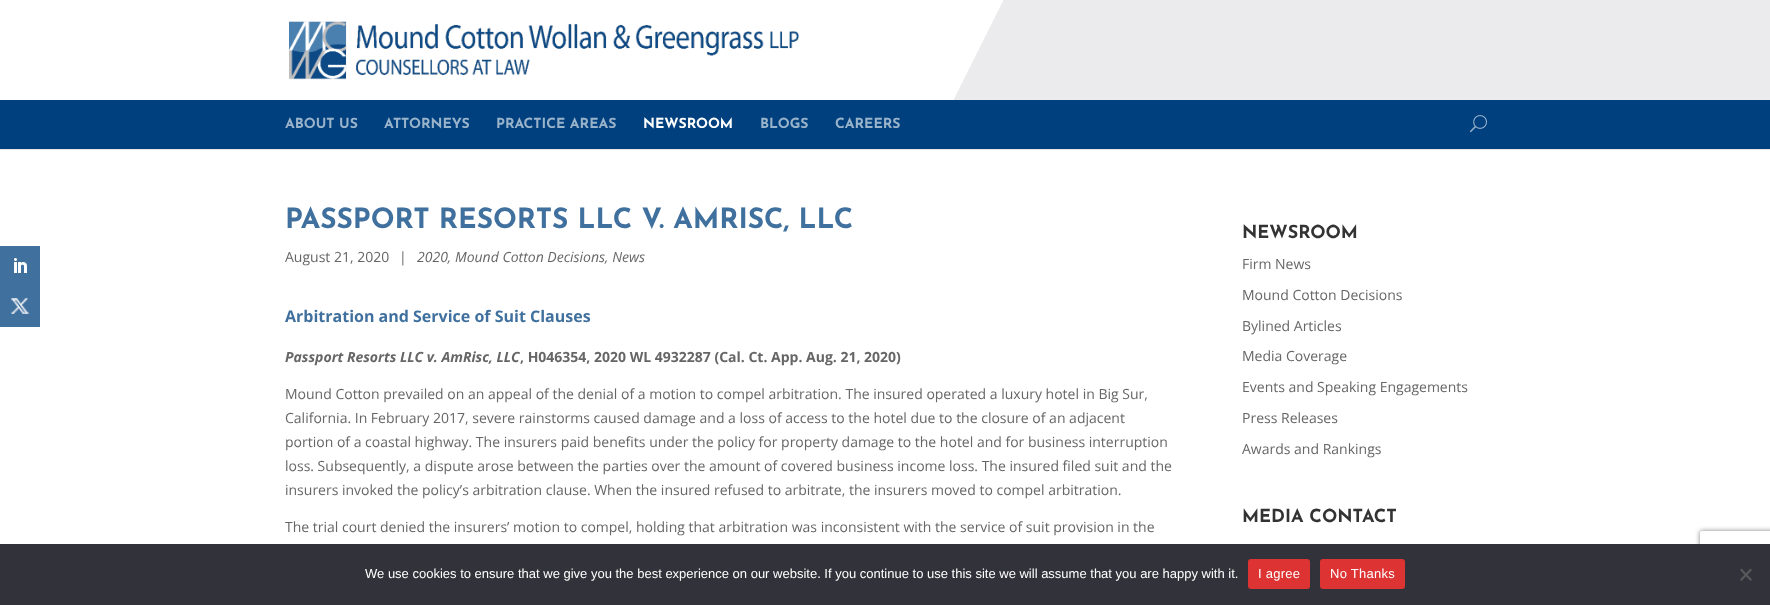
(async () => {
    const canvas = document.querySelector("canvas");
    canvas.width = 1770;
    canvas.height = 605;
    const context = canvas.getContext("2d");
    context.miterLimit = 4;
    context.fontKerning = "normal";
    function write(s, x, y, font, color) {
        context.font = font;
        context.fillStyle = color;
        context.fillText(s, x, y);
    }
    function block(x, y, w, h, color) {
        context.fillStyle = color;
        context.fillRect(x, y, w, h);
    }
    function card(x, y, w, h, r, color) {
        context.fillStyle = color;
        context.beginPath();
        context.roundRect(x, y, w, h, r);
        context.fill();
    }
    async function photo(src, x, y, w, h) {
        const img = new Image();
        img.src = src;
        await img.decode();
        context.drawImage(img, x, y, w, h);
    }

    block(0, 0, 1770, 605, "rgb(255, 255, 255)");
    block(0, 246, 40, 81, "rgb(64, 112, 158)");
    await photo("media/1.png", 14, 258, 13, 15);
    await photo("media/2.png", 11, 298, 19, 16);
    block(0, 149, 1770, 1, "rgb(230, 230, 230)");
    block(0, 100, 1770, 49, "rgb(0, 64, 126)");
    await photo("media/3.png", 954, 0, 816, 100);
    await photo("media/4.png", 289, 21, 510, 59);
    write("ABOUT US", 285, 128, "bold 14px Josefin Sans", "rgb(153, 179, 203)");
    write("ATTORNEYS", 384, 128, "bold 14px Josefin Sans", "rgb(153, 179, 203)");
    write("PRACTICE AREAS", 496, 128, "bold 14px Josefin Sans", "rgb(153, 179, 203)");
    write("NEWSROOM", 643, 128, "bold 14px Josefin Sans", "rgb(255, 255, 255)");
    write("BLOGS", 760, 128, "bold 14px Josefin Sans", "rgb(153, 179, 203)");
    write("CAREERS", 835, 128, "bold 14px Josefin Sans", "rgb(153, 179, 203)");
    await photo("media/5.png", 1470, 115, 17, 18);
    write("PASSPORT RESORTS LLC V. AMRISC, LLC", 285, 228, "bold 28px Josefin Sans", "rgb(64, 112, 158)");
    write("August 21, 2020", 285, 262, "14px Open Sans", "rgb(102, 102, 102)");
    write("|", 399, 262, "14px Open Sans", "rgb(102, 102, 102)");
    write("2020, Mound Cotton Decisions, News", 417, 262, "italic 14px Open Sans", "rgb(102, 102, 102)");
    write("Arbitration and Service of Suit Clauses", 285, 322, "bold 16px Open Sans", "rgb(64, 112, 158)");
    write("Passport Resorts LLC v. AmRisc, LLC", 285, 362, "italic bold 14px Open Sans", "rgb(102, 102, 102)");
    write(", H046354, 2020 WL 4932287 (Cal. Ct. App. Aug. 21, 2020)", 520, 362, "bold 14px Open Sans", "rgb(102, 102, 102)");
    write("Mound Cotton prevailed on an appeal of the denial of a motion to compel arbitration. The insured operated a luxury hotel in Big Sur,", 285, 399, "14px Open Sans", "rgb(102, 102, 102)");
    write("California. In February 2017, severe rainstorms caused damage and a loss of access to the hotel due to the closure of an adjacent", 285, 423, "14px Open Sans", "rgb(102, 102, 102)");
    write("portion of a coastal highway. The insurers paid benefits under the policy for property damage to the hotel and for business interruption", 285, 447, "14px Open Sans", "rgb(102, 102, 102)");
    write("loss. Subsequently, a dispute arose between the parties over the amount of covered business income loss. The insured filed suit and the", 285, 471, "14px Open Sans", "rgb(102, 102, 102)");
    write("insurers invoked the policy’s arbitration clause. When the insured refused to arbitrate, the insurers moved to compel arbitration.", 285, 495, "14px Open Sans", "rgb(102, 102, 102)");
    write("The trial court denied the insurers’ motion to compel, holding that arbitration was inconsistent with the service of suit provision in the", 285, 532, "14px Open Sans", "rgb(102, 102, 102)");
    write("NEWSROOM", 1242, 238, "bold 18px Josefin Sans", "rgb(51, 51, 51)");
    write("Firm News", 1242, 269, "14px Open Sans", "rgb(102, 102, 102)");
    write("Mound Cotton Decisions", 1242, 300, "14px Open Sans", "rgb(102, 102, 102)");
    write("Bylined Articles", 1242, 331, "14px Open Sans", "rgb(102, 102, 102)");
    write("Media Coverage", 1242, 361, "14px Open Sans", "rgb(102, 102, 102)");
    write("Events and Speaking Engagements", 1242, 392, "14px Open Sans", "rgb(102, 102, 102)");
    write("Press Releases", 1242, 423, "14px Open Sans", "rgb(102, 102, 102)");
    write("Awards and Rankings", 1242, 454, "14px Open Sans", "rgb(102, 102, 102)");
    write("MEDIA CONTACT", 1242, 522, "bold 18px Josefin Sans", "rgb(51, 51, 51)");
    context.save();
    context.beginPath();
    context.moveTo(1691, 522);
    context.lineTo(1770, 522);
    context.lineTo(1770, 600);
    context.lineTo(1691, 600);
    context.closePath();
    context.moveTo(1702, 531);
    context.lineTo(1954, 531);
    context.bezierCurveTo(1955, 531, 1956, 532, 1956, 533);
    context.lineTo(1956, 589);
    context.bezierCurveTo(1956, 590, 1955, 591, 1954, 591);
    context.lineTo(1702, 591);
    context.bezierCurveTo(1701, 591, 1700, 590, 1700, 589);
    context.lineTo(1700, 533);
    context.bezierCurveTo(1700, 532, 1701, 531, 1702, 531);
    context.closePath();
    context.clip("evenodd");
    context.fillStyle = "rgb(128, 128, 128)";
    context.filter = "blur(2.5px)";
    context.beginPath();
    context.roundRect(1700, 531, 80, 60, 2);
    context.fill();
    context.filter = "none";
    context.restore();
    block(0, 544, 1770, 61, "rgb(50, 50, 58)");
    write("We use cookies to ensure that we give you the best experience on our website. If you continue to use this site we will assume that you are happy with it.", 365, 578, "13px Liberation Sans", "rgb(255, 255, 255)");
    card(1248, 559, 62, 30, 3, "rgb(221, 51, 51)");
    context.letterSpacing = "0.25px";
    write("I agree", 1258, 578, "13px Liberation Sans", "rgb(255, 255, 255)");
    card(1320, 559, 85, 30, 3, "rgb(221, 51, 51)");
    write("No Thanks", 1330, 578, "13px Liberation Sans", "rgb(255, 255, 255)");
    context.fillStyle = "rgb(89, 89, 93)";
    context.beginPath();
    context.moveTo(1750.5, 568.5);
    context.lineTo(1752, 570);
    context.lineTo(1741.5, 581);
    context.lineTo(1740, 579.5);
    context.closePath();
    context.fill();
    context.beginPath();
    context.moveTo(1740, 570);
    context.lineTo(1741.5, 568.5);
    context.lineTo(1752, 579.5);
    context.lineTo(1750.5, 581);
    context.closePath();
    context.fill();
})();
